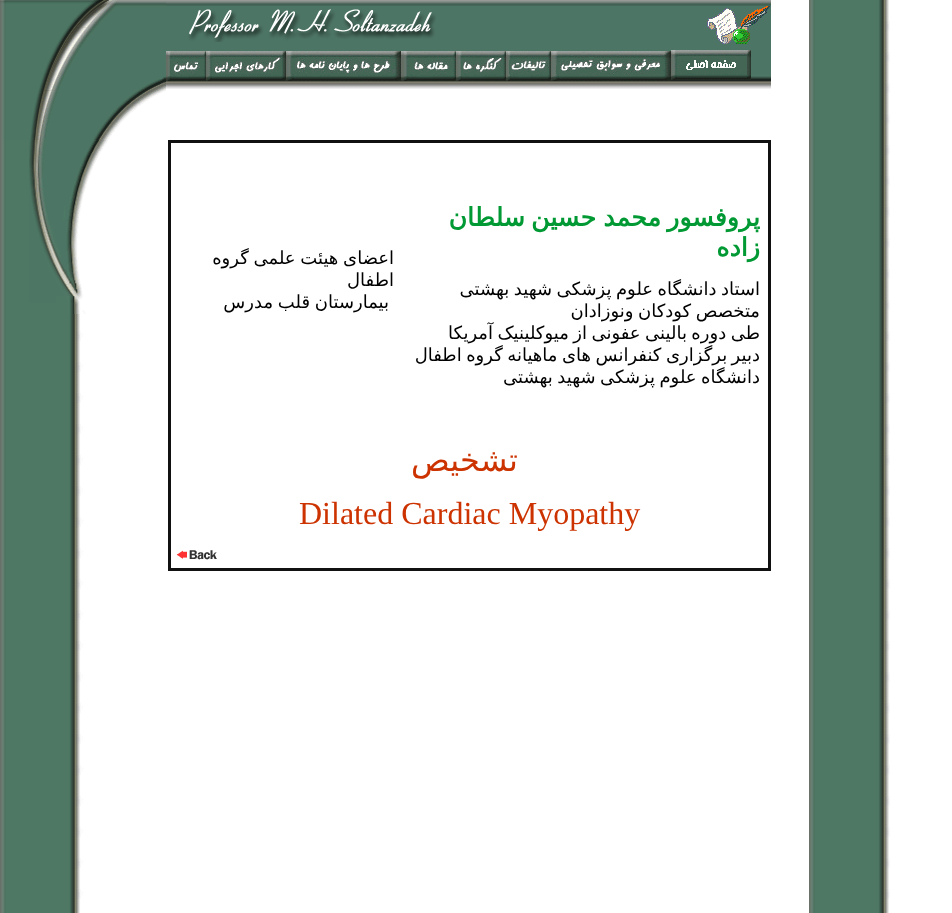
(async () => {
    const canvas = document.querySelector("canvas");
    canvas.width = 952;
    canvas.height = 913;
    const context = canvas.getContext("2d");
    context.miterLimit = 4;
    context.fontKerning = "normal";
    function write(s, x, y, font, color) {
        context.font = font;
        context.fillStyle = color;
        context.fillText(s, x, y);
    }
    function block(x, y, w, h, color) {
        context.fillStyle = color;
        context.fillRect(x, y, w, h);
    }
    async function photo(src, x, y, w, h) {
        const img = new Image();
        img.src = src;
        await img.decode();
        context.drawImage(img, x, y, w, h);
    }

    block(0, 0, 952, 913, "rgb(255, 255, 255)");
    await photo("media/1.png", 0, 0, 890, 913);
    await photo("media/2.png", 166, 0, 605, 89);
    await photo("media/3.png", 707, 6, 63, 38);
    await photo("media/4.png", 188, 9, 248, 33);
    await photo("media/5.png", 671, 50, 80, 30);
    await photo("media/6.png", 551, 51, 120, 30);
    await photo("media/7.png", 506, 51, 45, 30);
    await photo("media/8.png", 456, 51, 50, 30);
    await photo("media/9.png", 401, 51, 55, 30);
    await photo("media/10.png", 286, 51, 115, 30);
    await photo("media/11.png", 206, 51, 80, 30);
    await photo("media/12.png", 166, 51, 40, 30);
    await photo("media/13.png", 0, 0, 166, 140);
    block(168, 140, 603, 3, "rgb(17, 17, 17)");
    block(768, 140, 3, 431, "rgb(17, 17, 17)");
    block(168, 568, 603, 3, "rgb(17, 17, 17)");
    block(168, 140, 3, 431, "rgb(17, 17, 17)");
    context.wordSpacing = "-2px";
    context.direction = "rtl";
    write("پروفسور محمد", 760, 226, "bold 25.25px DejaVu Sans", "rgb(0, 153, 51)");
    write("حسین سلطان", 596, 226, "bold 25.25px DejaVu Sans", "rgb(0, 153, 51)");
    context.wordSpacing = "0px";
    write("زاده", 760, 256, "bold 25.25px DejaVu Sans", "rgb(0, 153, 51)");
    context.wordSpacing = "-1.25px";
    write("استاد دانشگاه علوم پزشکی شهید بهشتی", 760, 295, "18px DejaVu Sans", "rgb(0, 0, 0)");
    write("متخصص کودکان ونوزادان", 760, 317, "18px DejaVu Sans", "rgb(0, 0, 0)");
    write("طی دوره بالینی عفونی از میوکلینیک آمریکا", 760, 339, "18px DejaVu Sans", "rgb(0, 0, 0)");
    write("دبیر برگزاری کنفرانس های ماهیانه گروه اطفال", 760, 361, "18px DejaVu Sans", "rgb(0, 0, 0)");
    write("دانشگاه علوم پزشکی شهید بهشتی", 760, 383, "18px DejaVu Sans", "rgb(0, 0, 0)");
    context.wordSpacing = "-1px";
    write("اعضای هیئت علمی گروه", 394, 264, "18px DejaVu Sans", "rgb(0, 0, 0)");
    context.wordSpacing = "0px";
    write("اطفال", 394, 286, "18px DejaVu Sans", "rgb(0, 0, 0)");
    context.wordSpacing = "-1px";
    write("بیمارستان قلب مدرس", 389, 308, "18px DejaVu Sans", "rgb(0, 0, 0)");
    context.wordSpacing = "0px";
    write("تشخیص", 518, 471, "32px DejaVu Sans", "rgb(204, 51, 0)");
    context.direction = "ltr";
    write("Dilated Cardiac Myopathy", 299, 524, "32px Liberation Serif", "rgb(204, 51, 0)");
    await photo("media/14.png", 176, 550, 41, 10);
    await photo("media/15.png", 29, 140, 79, 174);
})();
